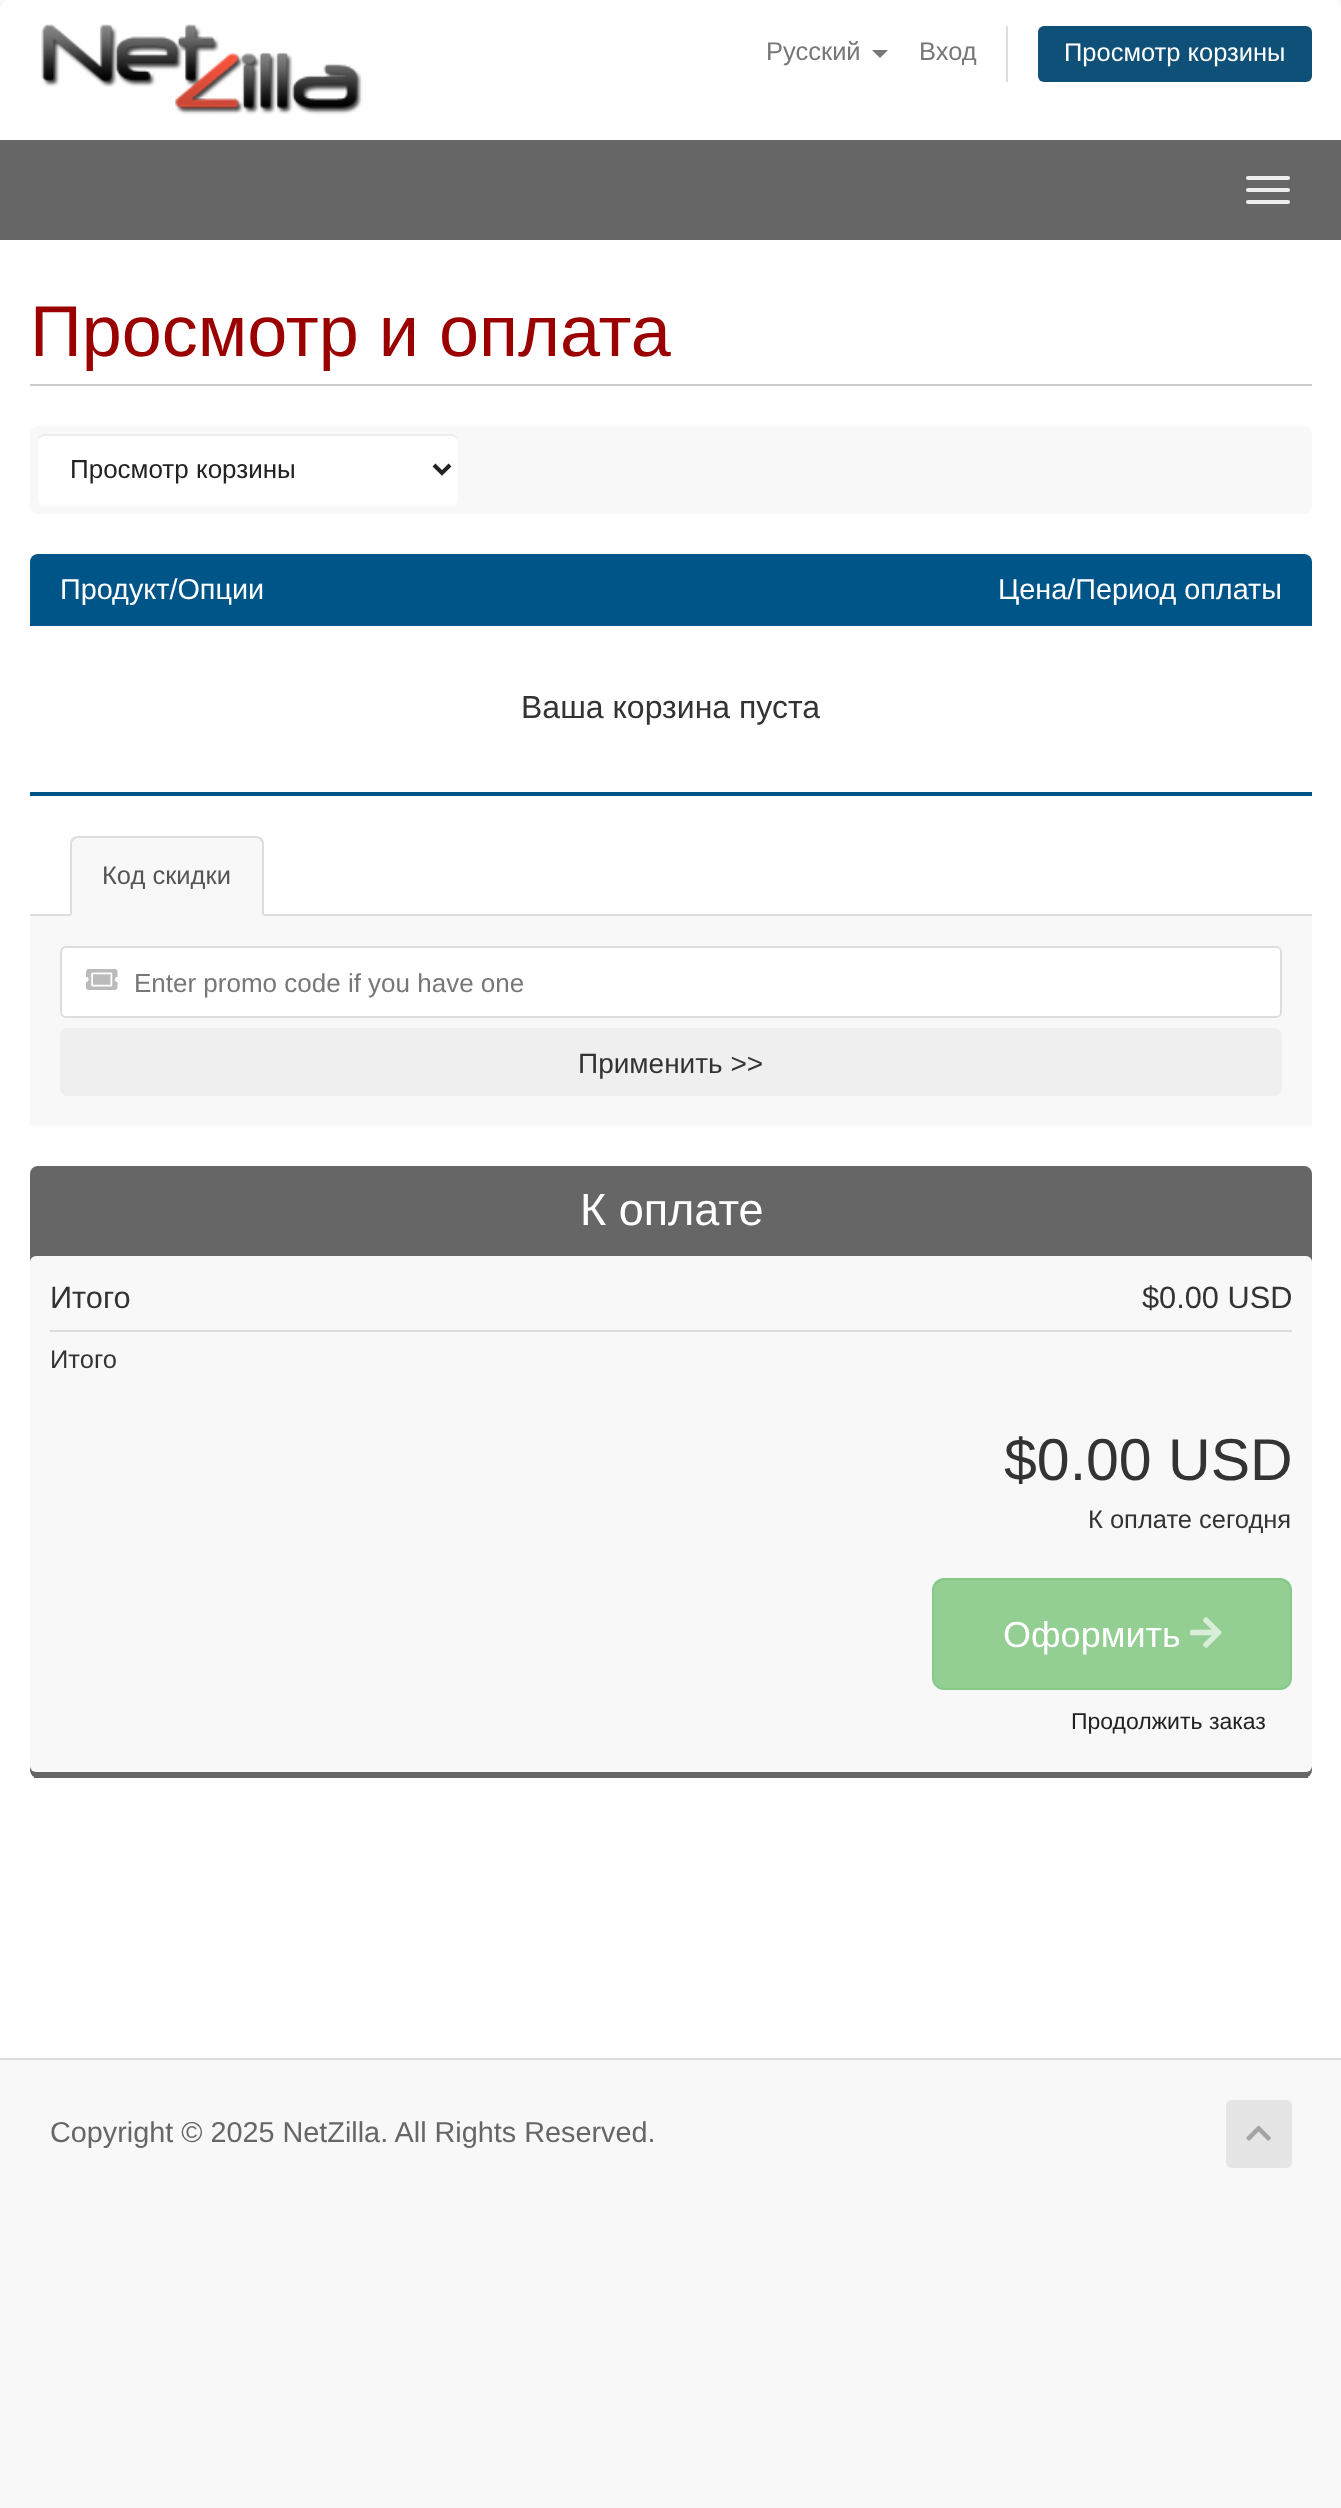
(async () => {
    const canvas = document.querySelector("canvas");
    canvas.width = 1341;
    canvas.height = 2508;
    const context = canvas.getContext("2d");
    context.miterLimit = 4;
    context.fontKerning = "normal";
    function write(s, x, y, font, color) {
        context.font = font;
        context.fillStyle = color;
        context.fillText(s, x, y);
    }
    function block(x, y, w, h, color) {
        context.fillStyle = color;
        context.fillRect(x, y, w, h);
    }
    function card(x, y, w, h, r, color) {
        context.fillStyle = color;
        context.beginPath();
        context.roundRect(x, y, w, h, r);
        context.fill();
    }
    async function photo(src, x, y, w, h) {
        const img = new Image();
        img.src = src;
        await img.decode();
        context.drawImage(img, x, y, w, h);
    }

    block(0, 0, 1341, 2508, "rgb(248, 248, 248)");
    context.fillStyle = "rgb(255, 255, 255)";
    context.beginPath();
    context.moveTo(10, 0);
    context.lineTo(1332, 0);
    context.bezierCurveTo(1337.5, 0, 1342, 4.5, 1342, 10);
    context.lineTo(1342, 140);
    context.lineTo(0, 140);
    context.lineTo(0, 10);
    context.bezierCurveTo(0, 4.5, 4.5, 0, 10, 0);
    context.closePath();
    context.fill();
    await photo("media/1.png", 41, 24, 322, 91);
    write("Русский", 766, 60, "25.5px Liberation Sans", "rgb(119, 119, 119)");
    context.beginPath();
    context.moveTo(872, 50);
    context.lineTo(888, 50);
    context.lineTo(880, 58);
    context.closePath();
    context.fill();
    write("Вход", 919, 60, "25.5px Liberation Sans", "rgb(119, 119, 119)");
    block(1006, 26, 2, 56, "rgb(221, 221, 221)");
    card(1038, 26, 274, 56, 6, "rgb(14, 80, 119)");
    write("Просмотр корзины", 1064, 61, "25.5px Liberation Sans", "rgb(255, 255, 255)");
    block(0, 140, 1341, 100, "rgb(102, 102, 102)");
    card(1246, 176, 44, 4, 2, "rgb(238, 238, 238)");
    card(1246, 188, 44, 4, 2, "rgb(238, 238, 238)");
    card(1246, 200, 44, 4, 2, "rgb(238, 238, 238)");
    block(0, 240, 1341, 1818, "rgb(255, 255, 255)");
    block(30, 384, 1282, 2, "rgb(204, 204, 204)");
    write("Просмотр и оплата", 30, 356, "72px Liberation Sans", "rgb(155, 0, 0)");
    card(30, 426, 1282, 88, 8, "rgb(248, 248, 248)");
    card(38, 434, 420, 72, 6, "rgb(255, 255, 255)");
    context.fillStyle = "rgb(236, 236, 236)";
    context.beginPath();
    context.moveTo(44, 436);
    context.lineTo(452, 436);
    context.bezierCurveTo(455, 436, 458, 439, 458, 442);
    context.lineTo(458, 440);
    context.bezierCurveTo(458, 437, 455, 434, 452, 434);
    context.lineTo(44, 434);
    context.bezierCurveTo(41, 434, 38, 437, 38, 440);
    context.lineTo(38, 442);
    context.bezierCurveTo(38, 439, 41, 436, 44, 436);
    context.closePath();
    context.fill();
    context.beginPath();
    context.moveTo(434, 465);
    context.lineTo(442, 473);
    context.lineTo(450, 465);
    context.strokeStyle = "rgb(34, 34, 34)";
    context.lineWidth = 4;
    context.stroke();
    write("Просмотр корзины", 70, 478, "26px Liberation Sans", "rgb(34, 34, 34)");
    context.fillStyle = "rgb(0, 85, 136)";
    context.beginPath();
    context.roundRect(30, 554, 1282, 72, [8, 8, 0, 0]);
    context.fill();
    write("Продукт/Опции", 60, 599, "28.8px Liberation Sans", "rgb(255, 255, 255)");
    write("Цена/Период оплаты", 998, 599, "28.8px Liberation Sans", "rgb(255, 255, 255)");
    block(30, 792, 1282, 4, "rgb(0, 85, 136)");
    write("Ваша корзина пуста", 521, 718, "32px Liberation Sans", "rgb(51, 51, 51)");
    block(30, 914, 1282, 2, "rgb(221, 221, 221)");
    context.fillStyle = "rgb(248, 248, 248)";
    context.beginPath();
    context.roundRect(70, 836, 194, 80, [8, 8, 0, 0]);
    context.fill();
    context.fillStyle = "rgb(221, 221, 221)";
    context.beginPath();
    context.moveTo(78, 836);
    context.bezierCurveTo(76, 836, 74, 837, 72, 838);
    context.lineTo(74, 840);
    context.bezierCurveTo(75, 839, 76, 838, 78, 838);
    context.lineTo(256, 838);
    context.bezierCurveTo(258, 838, 259, 839, 260, 840);
    context.lineTo(262, 838);
    context.bezierCurveTo(260, 837, 258, 836, 256, 836);
    context.closePath();
    context.fill();
    context.beginPath();
    context.moveTo(264, 916);
    context.lineTo(264, 844);
    context.bezierCurveTo(264, 842, 263, 840, 262, 838);
    context.lineTo(260, 840);
    context.lineTo(262, 843);
    context.lineTo(262, 914);
    context.closePath();
    context.fill();
    context.beginPath();
    context.moveTo(70, 916);
    context.lineTo(72, 914);
    context.lineTo(72, 843);
    context.lineTo(74, 840);
    context.lineTo(72, 838);
    context.bezierCurveTo(71, 840, 70, 842, 70, 844);
    context.closePath();
    context.fill();
    write("Код скидки", 102, 884, "25.5px Liberation Sans", "rgb(85, 85, 85)");
    block(30, 916, 1282, 210, "rgb(248, 248, 248)");
    context.fillStyle = "rgb(255, 255, 255)";
    context.beginPath();
    context.roundRect(61, 947, 1220, 70, 5);
    context.fill();
    context.strokeStyle = "rgb(221, 221, 221)";
    context.lineWidth = 2;
    context.stroke();
    await photo("media/2.png", 86, 969, 32, 21);
    write("Enter promo code if you have one", 134, 992, "26px Liberation Sans", "rgb(119, 119, 119)");
    card(60, 1028, 1222, 68, 8, "rgb(239, 239, 239)");
    write("Применить >>", 578, 1073, "28px Liberation Sans", "rgb(51, 51, 51)");
    card(30, 1166, 1282, 612, 8, "rgb(102, 102, 102)");
    block(34, 1777, 1274, 1, "rgb(102, 102, 102)");
    write("К оплате", 580, 1225, "45px Liberation Sans", "rgb(255, 255, 255)");
    card(30, 1256, 1282, 516, 6, "rgb(248, 248, 248)");
    block(50, 1330, 1242, 2, "rgb(221, 221, 221)");
    write("Итого", 50, 1308, "30.75px Liberation Sans", "rgb(51, 51, 51)");
    write("$0.00 USD", 1142, 1308, "30.75px Liberation Sans", "rgb(51, 51, 51)");
    write("Итого", 50, 1368, "25.5px Liberation Sans", "rgb(51, 51, 51)");
    write("$0.00 USD", 1004, 1480, "59px Liberation Sans", "rgb(51, 51, 51)");
    write("К оплате сегодня", 1088, 1528, "25.5px Liberation Sans", "rgb(51, 51, 51)");
    context.fillStyle = "rgb(147, 206, 147)";
    context.beginPath();
    context.roundRect(933, 1579, 358, 110, 11);
    context.fill();
    context.strokeStyle = "rgb(136, 200, 136)";
    context.stroke();
    write("Оформить", 1003, 1647, "36px Liberation Sans", "rgb(255, 255, 255)");
    await photo("media/3.png", 1190, 1617, 32, 31);
    write("Продолжить заказ", 1071, 1729, "23px Liberation Sans", "rgb(34, 34, 34)");
    block(0, 2058, 1341, 2, "rgb(221, 221, 221)");
    write("Copyright © 2025 NetZilla. All Rights Reserved.", 50, 2142, "28.8px Liberation Sans", "rgb(102, 102, 102)");
    card(1226, 2100, 66, 68, 6, "rgb(229, 229, 229)");
    await photo("media/4.png", 1246, 2125, 25, 16);
})();
